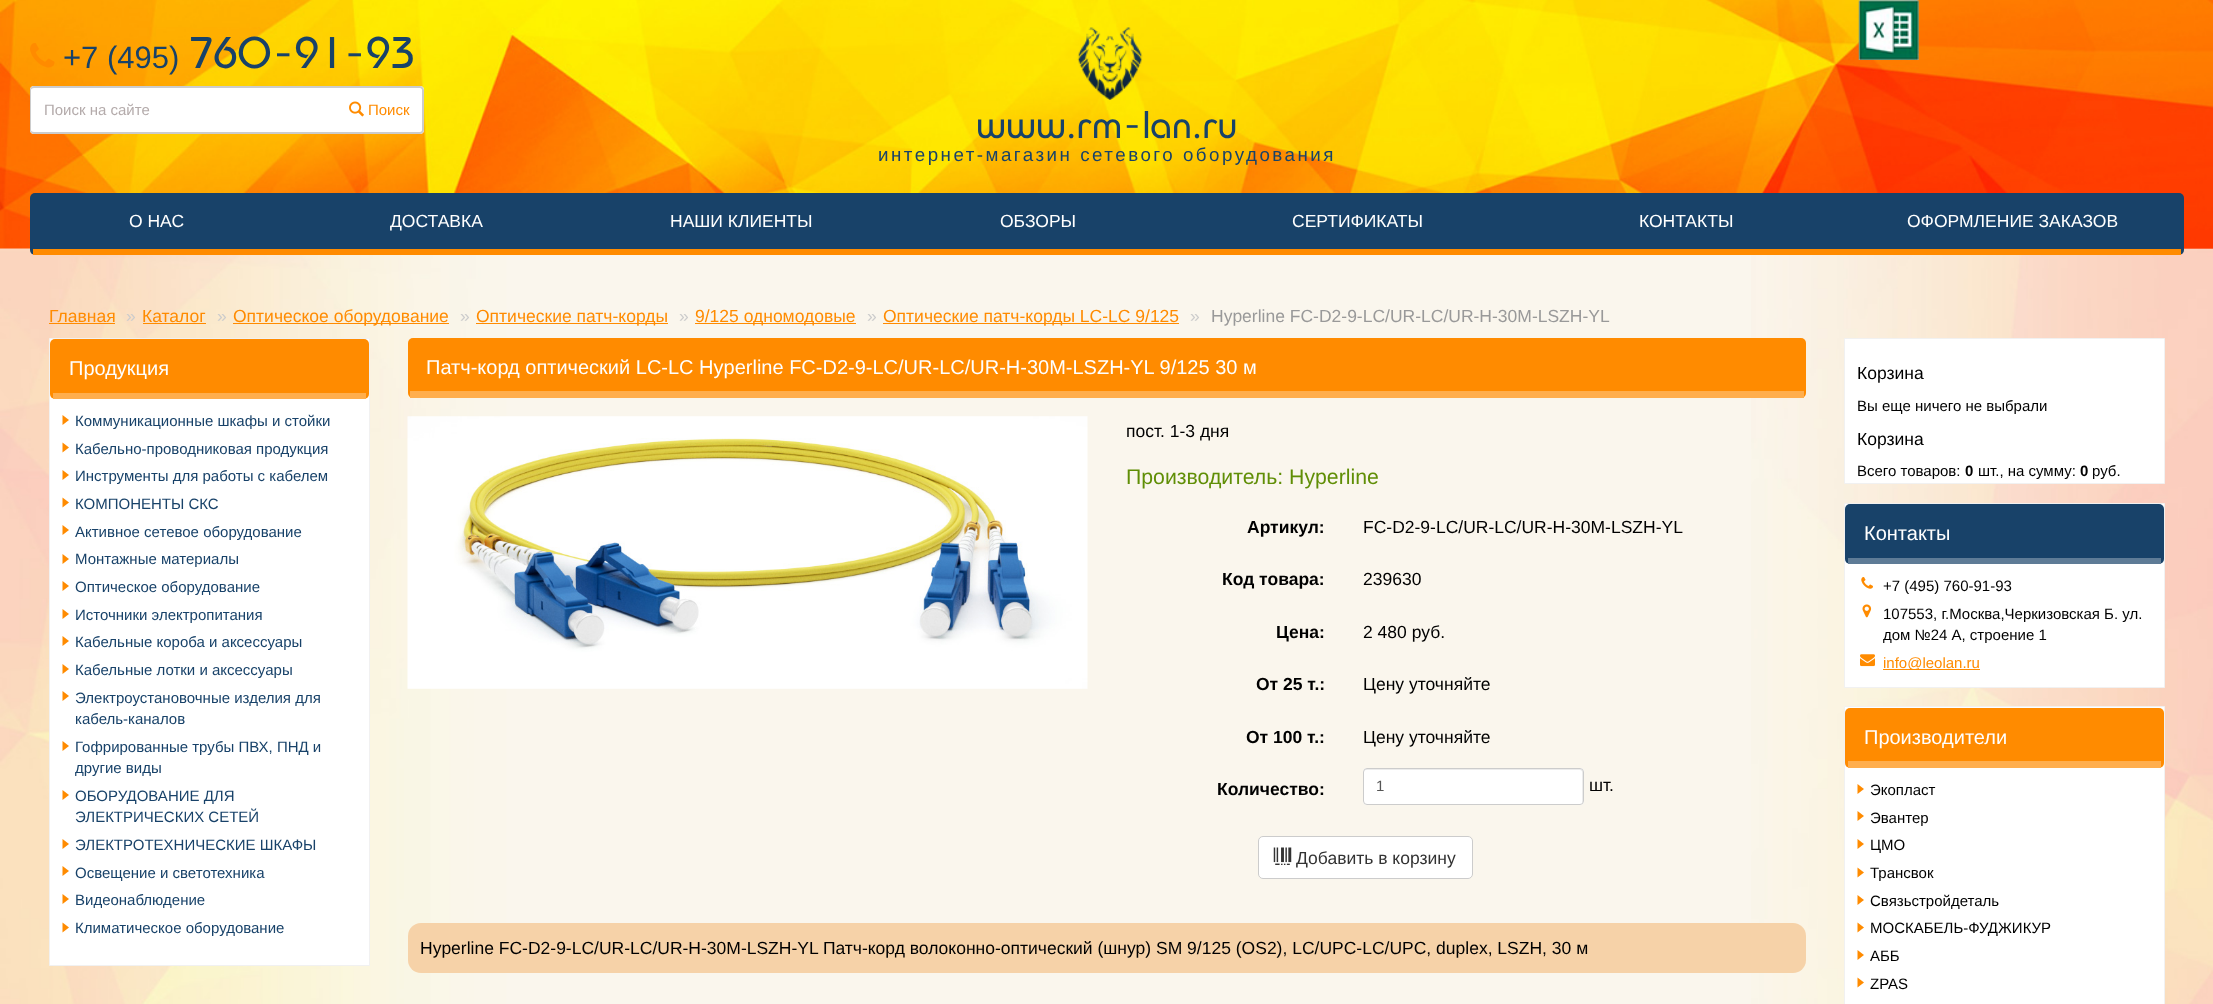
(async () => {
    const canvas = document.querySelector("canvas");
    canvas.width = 2213;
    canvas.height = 1004;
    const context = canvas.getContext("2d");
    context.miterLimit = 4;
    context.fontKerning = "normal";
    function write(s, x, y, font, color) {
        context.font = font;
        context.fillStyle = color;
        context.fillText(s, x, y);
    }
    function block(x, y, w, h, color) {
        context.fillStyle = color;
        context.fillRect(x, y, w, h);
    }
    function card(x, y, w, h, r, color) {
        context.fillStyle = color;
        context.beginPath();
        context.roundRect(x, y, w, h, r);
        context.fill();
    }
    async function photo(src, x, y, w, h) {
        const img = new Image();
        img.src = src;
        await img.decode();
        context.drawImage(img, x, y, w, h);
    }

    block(0, 0, 2213, 1004, "rgb(250, 246, 237)");
    await photo("media/7.png", 1751, 248, 462, 756);
    await photo("media/1.png", 0, 0, 2213, 249);
    await photo("media/2.png", 1858, 0, 61, 60);
    await photo("media/3.png", 30, 43, 25, 25);
    write("+7 (495)", 63, 68, "31px Liberation Sans", "rgb(24, 66, 105)");
    write("760-91-93", 189, 68, "43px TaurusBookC", "rgb(24, 66, 105)");
    context.fillStyle = "rgb(255, 255, 255)";
    context.beginPath();
    context.roundRect(336, 86, 88, 48, [0, 4, 4, 0]);
    context.fill();
    context.fillStyle = "rgb(204, 204, 204)";
    context.beginPath();
    context.moveTo(336, 86);
    context.lineTo(420, 86);
    context.bezierCurveTo(422, 86, 424, 88, 424, 90);
    context.lineTo(424, 130);
    context.bezierCurveTo(424, 132, 422, 134, 420, 134);
    context.lineTo(336, 134);
    context.closePath();
    context.moveTo(336, 88);
    context.lineTo(420, 88);
    context.bezierCurveTo(421, 88, 422, 89, 422, 90);
    context.lineTo(422, 130);
    context.bezierCurveTo(422, 131, 421, 132, 420, 132);
    context.lineTo(336, 132);
    context.closePath();
    context.fill("evenodd");
    context.fillStyle = "rgb(255, 255, 255)";
    context.beginPath();
    context.roundRect(30, 86, 308, 48, [4, 0, 0, 4]);
    context.fill();
    context.fillStyle = "rgb(204, 204, 204)";
    context.beginPath();
    context.moveTo(34, 86);
    context.lineTo(338, 86);
    context.lineTo(338, 134);
    context.lineTo(34, 134);
    context.bezierCurveTo(32, 134, 30, 132, 30, 130);
    context.lineTo(30, 90);
    context.bezierCurveTo(30, 88, 32, 86, 34, 86);
    context.closePath();
    context.moveTo(34, 88);
    context.lineTo(338, 88);
    context.lineTo(338, 132);
    context.lineTo(34, 132);
    context.bezierCurveTo(32, 132, 31, 131, 31, 130);
    context.lineTo(31, 90);
    context.bezierCurveTo(31, 89, 32, 88, 34, 88);
    context.closePath();
    context.fill("evenodd");
    write("Поиск на сайте", 44, 115, "15px Liberation Sans", "rgb(180, 171, 171)");
    await photo("media/4.png", 349, 101, 15, 16);
    write("Поиск", 368, 115, "15px Liberation Sans", "rgb(255, 139, 0)");
    await photo("media/5.png", 1077, 27, 66, 73);
    write("www.rm-lan.ru", 976, 138, "37.5px TaurusBookC", "rgb(24, 66, 105)");
    context.letterSpacing = "2.5px";
    write("интернет-магазин сетевого оборудования", 878, 161, "18.75px Liberation Sans", "rgb(24, 66, 105)");
    await photo("media/6.png", 0, 248, 507, 756);
    card(30, 193, 2154, 62, 5, "rgb(24, 66, 105)");
    block(33, 249, 2148, 6, "rgb(255, 139, 0)");
    context.letterSpacing = "0px";
    write("О НАС", 129, 227, "17.5px Liberation Sans", "rgb(255, 255, 255)");
    write("ДОСТАВКА", 390, 227, "17.5px Liberation Sans", "rgb(255, 255, 255)");
    write("НАШИ КЛИЕНТЫ", 670, 227, "17.5px Liberation Sans", "rgb(255, 255, 255)");
    write("ОБЗОРЫ", 1000, 227, "17.5px Liberation Sans", "rgb(255, 255, 255)");
    write("СЕРТИФИКАТЫ", 1292, 227, "17.5px Liberation Sans", "rgb(255, 255, 255)");
    write("КОНТАКТЫ", 1639, 227, "17.5px Liberation Sans", "rgb(255, 255, 255)");
    write("ОФОРМЛЕНИЕ ЗАКАЗОВ", 1907, 227, "17.5px Liberation Sans", "rgb(255, 255, 255)");
    write("Главная", 49, 322, "17.5px Liberation Sans", "rgb(255, 139, 0)");
    block(49, 323, 66, 1, "rgb(255, 139, 0)");
    write("»", 126, 322, "17.5px Liberation Sans", "rgb(204, 204, 204)");
    write("Каталог", 142, 322, "17.5px Liberation Sans", "rgb(255, 139, 0)");
    block(143, 323, 63, 1, "rgb(255, 139, 0)");
    write("»", 217, 322, "17.5px Liberation Sans", "rgb(204, 204, 204)");
    block(233, 323, 216, 1, "rgb(255, 139, 0)");
    write("Оптическое оборудование", 233, 322, "17.5px Liberation Sans", "rgb(255, 139, 0)");
    write("»", 460, 322, "17.5px Liberation Sans", "rgb(204, 204, 204)");
    block(476, 323, 192, 1, "rgb(255, 139, 0)");
    write("Оптические патч-корды", 476, 322, "17.5px Liberation Sans", "rgb(255, 139, 0)");
    write("»", 679, 322, "17.5px Liberation Sans", "rgb(204, 204, 204)");
    block(695, 323, 161, 1, "rgb(255, 139, 0)");
    write("9/125 одномодовые", 695, 322, "17.5px Liberation Sans", "rgb(255, 139, 0)");
    write("»", 867, 322, "17.5px Liberation Sans", "rgb(204, 204, 204)");
    block(883, 323, 296, 1, "rgb(255, 139, 0)");
    write("Оптические патч-корды LC-LC 9/125", 883, 322, "17.5px Liberation Sans", "rgb(255, 139, 0)");
    write("»", 1190, 322, "17.5px Liberation Sans", "rgb(204, 204, 204)");
    write("Hyperline FC-D2-9-LC/UR-LC/UR-H-30M-LSZH-YL", 1211, 322, "17.5px Liberation Sans", "rgb(153, 153, 153)");
    context.fillStyle = "rgb(255, 255, 255)";
    context.beginPath();
    context.rect(49.5, 338.5, 320, 627);
    context.fill();
    context.strokeStyle = "rgb(241, 241, 241)";
    context.stroke();
    card(50, 339, 319, 60, 5, "rgb(255, 139, 0)");
    block(53, 393, 313, 6, "rgb(255, 174, 77)");
    write("Продукция", 69, 375, "20px Liberation Sans", "rgb(255, 255, 255)");
    context.fillStyle = "rgb(255, 139, 0)";
    context.beginPath();
    context.moveTo(62.5, 425);
    context.lineTo(62.5, 415);
    context.lineTo(69, 420);
    context.closePath();
    context.fill();
    write("Коммуникационные шкафы и стойки", 75, 426, "15px Liberation Sans", "rgb(24, 66, 105)");
    context.fillStyle = "rgb(255, 139, 0)";
    context.beginPath();
    context.moveTo(62.5, 452.5);
    context.lineTo(62.5, 442.5);
    context.lineTo(69, 447.5);
    context.closePath();
    context.fill();
    write("Кабельно-проводниковая продукция", 75, 454, "15px Liberation Sans", "rgb(24, 66, 105)");
    context.fillStyle = "rgb(255, 139, 0)";
    context.beginPath();
    context.moveTo(62.5, 480);
    context.lineTo(62.5, 470);
    context.lineTo(69, 475);
    context.closePath();
    context.fill();
    write("Инструменты для работы с кабелем", 75, 481, "15px Liberation Sans", "rgb(24, 66, 105)");
    context.fillStyle = "rgb(255, 139, 0)";
    context.beginPath();
    context.moveTo(62.5, 507.5);
    context.lineTo(62.5, 497.5);
    context.lineTo(69, 502.5);
    context.closePath();
    context.fill();
    write("КОМПОНЕНТЫ СКС", 75, 509, "15px Liberation Sans", "rgb(24, 66, 105)");
    context.fillStyle = "rgb(255, 139, 0)";
    context.beginPath();
    context.moveTo(62.5, 535);
    context.lineTo(62.5, 525);
    context.lineTo(69, 530);
    context.closePath();
    context.fill();
    write("Активное сетевое оборудование", 75, 537, "15px Liberation Sans", "rgb(24, 66, 105)");
    context.fillStyle = "rgb(255, 139, 0)";
    context.beginPath();
    context.moveTo(62.5, 564);
    context.lineTo(62.5, 554);
    context.lineTo(69, 559);
    context.closePath();
    context.fill();
    write("Монтажные материалы", 75, 564, "15px Liberation Sans", "rgb(24, 66, 105)");
    context.fillStyle = "rgb(255, 139, 0)";
    context.beginPath();
    context.moveTo(62.5, 591);
    context.lineTo(62.5, 581);
    context.lineTo(69, 586);
    context.closePath();
    context.fill();
    write("Оптическое оборудование", 75, 592, "15px Liberation Sans", "rgb(24, 66, 105)");
    context.fillStyle = "rgb(255, 139, 0)";
    context.beginPath();
    context.moveTo(62.5, 619);
    context.lineTo(62.5, 609);
    context.lineTo(69, 614);
    context.closePath();
    context.fill();
    write("Источники электропитания", 75, 620, "15px Liberation Sans", "rgb(24, 66, 105)");
    context.fillStyle = "rgb(255, 139, 0)";
    context.beginPath();
    context.moveTo(62.5, 646);
    context.lineTo(62.5, 636);
    context.lineTo(69, 641);
    context.closePath();
    context.fill();
    write("Кабельные короба и аксессуары", 75, 647, "15px Liberation Sans", "rgb(24, 66, 105)");
    context.fillStyle = "rgb(255, 139, 0)";
    context.beginPath();
    context.moveTo(62.5, 674);
    context.lineTo(62.5, 664);
    context.lineTo(69, 669);
    context.closePath();
    context.fill();
    write("Кабельные лотки и аксессуары", 75, 675, "15px Liberation Sans", "rgb(24, 66, 105)");
    context.fillStyle = "rgb(255, 139, 0)";
    context.beginPath();
    context.moveTo(62.5, 701);
    context.lineTo(62.5, 691);
    context.lineTo(69, 696);
    context.closePath();
    context.fill();
    write("Электроустановочные изделия для", 75, 703, "15px Liberation Sans", "rgb(24, 66, 105)");
    write("кабель-каналов", 75, 724, "15px Liberation Sans", "rgb(24, 66, 105)");
    context.fillStyle = "rgb(255, 139, 0)";
    context.beginPath();
    context.moveTo(62.5, 751);
    context.lineTo(62.5, 741);
    context.lineTo(69, 746);
    context.closePath();
    context.fill();
    write("Гофрированные трубы ПВХ, ПНД и", 75, 752, "15px Liberation Sans", "rgb(24, 66, 105)");
    write("другие виды", 75, 773, "15px Liberation Sans", "rgb(24, 66, 105)");
    context.fillStyle = "rgb(255, 139, 0)";
    context.beginPath();
    context.moveTo(62.5, 800);
    context.lineTo(62.5, 790);
    context.lineTo(69, 795);
    context.closePath();
    context.fill();
    write("ОБОРУДОВАНИЕ ДЛЯ", 75, 801, "15px Liberation Sans", "rgb(24, 66, 105)");
    write("ЭЛЕКТРИЧЕСКИХ СЕТЕЙ", 75, 822, "15px Liberation Sans", "rgb(24, 66, 105)");
    context.fillStyle = "rgb(255, 139, 0)";
    context.beginPath();
    context.moveTo(62.5, 849);
    context.lineTo(62.5, 839);
    context.lineTo(69, 844);
    context.closePath();
    context.fill();
    write("ЭЛЕКТРОТЕХНИЧЕСКИЕ ШКАФЫ", 75, 850, "15px Liberation Sans", "rgb(24, 66, 105)");
    context.fillStyle = "rgb(255, 139, 0)";
    context.beginPath();
    context.moveTo(62.5, 876);
    context.lineTo(62.5, 866);
    context.lineTo(69, 871);
    context.closePath();
    context.fill();
    write("Освещение и светотехника", 75, 878, "15px Liberation Sans", "rgb(24, 66, 105)");
    context.fillStyle = "rgb(255, 139, 0)";
    context.beginPath();
    context.moveTo(62.5, 904);
    context.lineTo(62.5, 894);
    context.lineTo(69, 899);
    context.closePath();
    context.fill();
    write("Видеонаблюдение", 75, 905, "15px Liberation Sans", "rgb(24, 66, 105)");
    context.fillStyle = "rgb(255, 139, 0)";
    context.beginPath();
    context.moveTo(62.5, 932.5);
    context.lineTo(62.5, 922.5);
    context.lineTo(69, 927.5);
    context.closePath();
    context.fill();
    write("Климатическое оборудование", 75, 933, "15px Liberation Sans", "rgb(24, 66, 105)");
    card(408, 338, 1398, 60, 5, "rgb(255, 139, 0)");
    block(410, 391, 1394, 7, "rgb(255, 174, 77)");
    write("Патч-корд оптический LC-LC Hyperline FC-D2-9-LC/UR-LC/UR-H-30M-LSZH-YL 9/125 30 м", 426, 374, "20px Liberation Sans", "rgb(255, 255, 255)");
    await photo("media/8.png", 407, 416, 681, 273);
    write("пост. 1-3 дня", 1126, 437, "17.5px Liberation Sans", "rgb(0, 0, 0)");
    write("Производитель: Hyperline", 1126, 484, "21.25px Liberation Sans", "rgb(96, 142, 6)");
    write("Артикул:", 1247, 533, "bold 17.5px Liberation Sans", "rgb(0, 0, 0)");
    write("FC-D2-9-LC/UR-LC/UR-H-30M-LSZH-YL", 1363, 533, "17.5px Liberation Sans", "rgb(0, 0, 0)");
    write("Код товара:", 1222, 585, "bold 17.5px Liberation Sans", "rgb(0, 0, 0)");
    write("239630", 1363, 585, "17.5px Liberation Sans", "rgb(0, 0, 0)");
    write("Цена:", 1276, 638, "bold 17.5px Liberation Sans", "rgb(0, 0, 0)");
    write("2 480 руб.", 1363, 638, "17.5px Liberation Sans", "rgb(0, 0, 0)");
    write("От 25 т.:", 1256, 690, "bold 17.5px Liberation Sans", "rgb(0, 0, 0)");
    write("Цену уточняйте", 1363, 690, "17.5px Liberation Sans", "rgb(0, 0, 0)");
    write("От 100 т.:", 1246, 743, "bold 17.5px Liberation Sans", "rgb(0, 0, 0)");
    write("Цену уточняйте", 1363, 743, "17.5px Liberation Sans", "rgb(0, 0, 0)");
    write("Количество:", 1217, 795, "bold 17.5px Liberation Sans", "rgb(0, 0, 0)");
    card(1363, 768, 221, 37, 4, "rgb(255, 255, 255)");
    context.fillStyle = "rgb(236, 236, 236)";
    context.beginPath();
    context.moveTo(1366, 770);
    context.lineTo(1580, 770);
    context.bezierCurveTo(1581, 770, 1582, 771, 1582, 772);
    context.lineTo(1582, 804);
    context.bezierCurveTo(1582, 803, 1583, 802, 1583, 802);
    context.lineTo(1583, 772);
    context.bezierCurveTo(1583, 770, 1582, 769, 1580, 769);
    context.lineTo(1366, 769);
    context.bezierCurveTo(1365, 769, 1364, 770, 1364, 772);
    context.bezierCurveTo(1364, 771, 1365, 770, 1366, 770);
    context.closePath();
    context.fill();
    context.beginPath();
    context.roundRect(1363.5, 768.5, 220, 36, 3.5);
    context.strokeStyle = "rgb(204, 204, 204)";
    context.stroke();
    write("1", 1376, 791, "15px Liberation Sans", "rgb(85, 85, 85)");
    write("шт.", 1589, 791, "17.5px Liberation Sans", "rgb(0, 0, 0)");
    context.fillStyle = "rgb(255, 255, 255)";
    context.beginPath();
    context.roundRect(1258.5, 836.5, 214, 42, 4.5);
    context.fill();
    context.stroke();
    await photo("media/9.png", 1273, 847, 19, 18);
    write("Добавить в корзину", 1296, 864, "17.5px Liberation Sans", "rgb(51, 51, 51)");
    card(408, 923, 1398, 50, 13, "rgb(246, 210, 168)");
    write("Hyperline FC-D2-9-LC/UR-LC/UR-H-30M-LSZH-YL Патч-корд волоконно-оптический (шнур) SM 9/125 (OS2), LC/UPC-LC/UPC, duplex, LSZH, 30 м", 420, 954, "17.5px Liberation Sans", "rgb(0, 0, 0)");
    context.fillStyle = "rgb(255, 255, 255)";
    context.beginPath();
    context.rect(1844.5, 338.5, 320, 145);
    context.fill();
    context.strokeStyle = "rgb(241, 241, 241)";
    context.stroke();
    write("Корзина", 1857, 379, "17.5px Liberation Sans", "rgb(0, 0, 0)");
    write("Вы еще ничего не выбрали", 1857, 411, "15px Liberation Sans", "rgb(0, 0, 0)");
    write("Корзина", 1857, 445, "17.5px Liberation Sans", "rgb(0, 0, 0)");
    write("Всего товаров:", 1857, 476, "15px Liberation Sans", "rgb(0, 0, 0)");
    write("0", 1965, 476, "bold 15px Liberation Sans", "rgb(0, 0, 0)");
    write("шт., на сумму:", 1978, 476, "15px Liberation Sans", "rgb(0, 0, 0)");
    write("0", 2080, 476, "bold 15px Liberation Sans", "rgb(0, 0, 0)");
    write("руб.", 2092, 476, "15px Liberation Sans", "rgb(0, 0, 0)");
    context.fillStyle = "rgb(255, 255, 255)";
    context.beginPath();
    context.rect(1844.5, 503.5, 320, 184);
    context.fill();
    context.stroke();
    card(1845, 504, 319, 60, 5, "rgb(24, 66, 105)");
    block(1848, 558, 313, 6, "rgb(94, 123, 150)");
    write("Контакты", 1864, 540, "20px Liberation Sans", "rgb(255, 255, 255)");
    await photo("media/10.png", 1861, 577, 12, 12);
    write("+7 (495) 760-91-93", 1883, 591, "15px Liberation Sans", "rgb(0, 0, 0)");
    await photo("media/11.png", 1862, 604, 10, 14);
    write("107553, г.Москва,Черкизовская Б. ул.", 1883, 619, "15px Liberation Sans", "rgb(0, 0, 0)");
    write("дом №24 А, строение 1", 1883, 640, "15px Liberation Sans", "rgb(0, 0, 0)");
    await photo("media/12.png", 1860, 654, 15, 13);
    block(1883, 669, 97, 1, "rgb(255, 139, 0)");
    write("info@leolan.ru", 1883, 668, "15px Liberation Sans", "rgb(255, 139, 0)");
    context.fillStyle = "rgb(255, 255, 255)";
    context.beginPath();
    context.rect(1844.5, 706.5, 320, 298);
    context.fill();
    context.stroke();
    card(1845, 708, 319, 60, 5, "rgb(255, 139, 0)");
    block(1848, 761, 313, 7, "rgb(255, 174, 77)");
    write("Производители", 1864, 744, "20px Liberation Sans", "rgb(255, 255, 255)");
    context.fillStyle = "rgb(255, 139, 0)";
    context.beginPath();
    context.moveTo(1857.5, 794);
    context.lineTo(1857.5, 784);
    context.lineTo(1864, 789);
    context.closePath();
    context.fill();
    write("Экопласт", 1870, 795, "15px Liberation Sans", "rgb(0, 0, 0)");
    context.fillStyle = "rgb(255, 139, 0)";
    context.beginPath();
    context.moveTo(1857.5, 821);
    context.lineTo(1857.5, 811);
    context.lineTo(1864, 816);
    context.closePath();
    context.fill();
    write("Эвантер", 1870, 823, "15px Liberation Sans", "rgb(0, 0, 0)");
    context.fillStyle = "rgb(255, 139, 0)";
    context.beginPath();
    context.moveTo(1857.5, 849);
    context.lineTo(1857.5, 839);
    context.lineTo(1864, 844);
    context.closePath();
    context.fill();
    write("ЦМО", 1870, 850, "15px Liberation Sans", "rgb(0, 0, 0)");
    context.fillStyle = "rgb(255, 139, 0)";
    context.beginPath();
    context.moveTo(1857.5, 877.5);
    context.lineTo(1857.5, 867.5);
    context.lineTo(1864, 872.5);
    context.closePath();
    context.fill();
    write("Трансвок", 1870, 878, "15px Liberation Sans", "rgb(0, 0, 0)");
    context.fillStyle = "rgb(255, 139, 0)";
    context.beginPath();
    context.moveTo(1857.5, 905);
    context.lineTo(1857.5, 895);
    context.lineTo(1864, 900);
    context.closePath();
    context.fill();
    write("Связьстройдеталь", 1870, 906, "15px Liberation Sans", "rgb(0, 0, 0)");
    context.fillStyle = "rgb(255, 139, 0)";
    context.beginPath();
    context.moveTo(1857.5, 932.5);
    context.lineTo(1857.5, 922.5);
    context.lineTo(1864, 927.5);
    context.closePath();
    context.fill();
    write("МОСКАБЕЛЬ-ФУДЖИКУР", 1870, 933, "15px Liberation Sans", "rgb(0, 0, 0)");
    context.fillStyle = "rgb(255, 139, 0)";
    context.beginPath();
    context.moveTo(1857.5, 960);
    context.lineTo(1857.5, 950);
    context.lineTo(1864, 955);
    context.closePath();
    context.fill();
    write("АББ", 1870, 961, "15px Liberation Sans", "rgb(0, 0, 0)");
    context.fillStyle = "rgb(255, 139, 0)";
    context.beginPath();
    context.moveTo(1857.5, 987.5);
    context.lineTo(1857.5, 977.5);
    context.lineTo(1864, 982.5);
    context.closePath();
    context.fill();
    write("ZPAS", 1870, 989, "15px Liberation Sans", "rgb(0, 0, 0)");
})();
